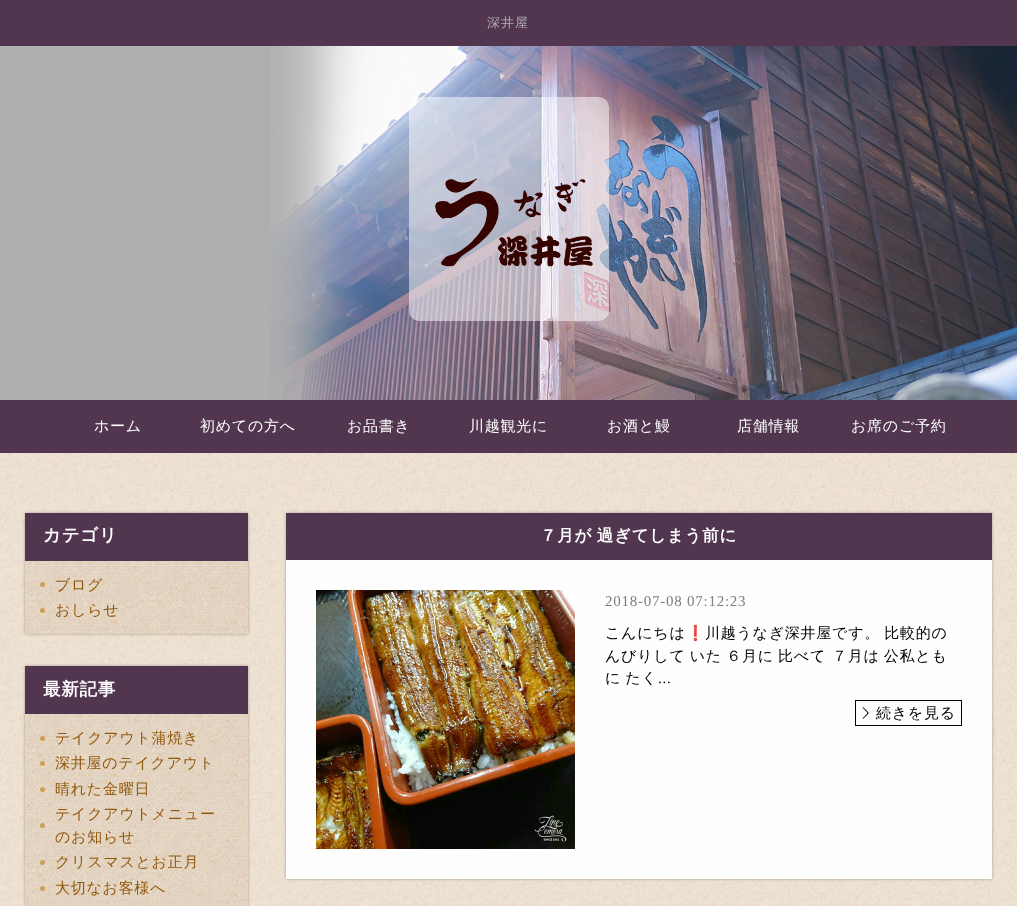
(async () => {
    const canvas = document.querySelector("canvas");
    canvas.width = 1017;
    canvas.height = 906;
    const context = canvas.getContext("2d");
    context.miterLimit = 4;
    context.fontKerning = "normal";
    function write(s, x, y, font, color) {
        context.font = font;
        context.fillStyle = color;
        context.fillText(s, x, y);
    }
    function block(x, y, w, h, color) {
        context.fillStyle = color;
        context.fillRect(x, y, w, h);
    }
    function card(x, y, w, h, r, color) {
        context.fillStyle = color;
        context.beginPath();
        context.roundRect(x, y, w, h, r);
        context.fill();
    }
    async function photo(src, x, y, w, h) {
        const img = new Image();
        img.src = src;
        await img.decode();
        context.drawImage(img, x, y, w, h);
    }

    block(0, 0, 1017, 906, "rgb(255, 255, 255)");
    await photo("media/1.png", 0, 453, 1017, 453);
    block(0, 46, 492, 354, "rgb(175, 175, 175)");
    await photo("media/2.png", 270, 46, 747, 354);
    block(0, 0, 1017, 46, "rgb(82, 54, 79)");
    context.letterSpacing = "1px";
    write("深井屋", 487, 27, "500 13px WenQuanYi Zen Hei", "rgb(175, 175, 175)");
    card(409, 97, 200, 224, 10, "rgba(255, 255, 255, 0.5)");
    await photo("media/3.png", 435, 178, 158, 89);
    block(0, 400, 1017, 53, "rgb(82, 54, 79)");
    context.letterSpacing = "0.75px";
    write("ホーム", 94, 431, "500 15px WenQuanYi Zen Hei", "rgb(254, 254, 254)");
    write("初めての方へ", 200, 431, "500 15px WenQuanYi Zen Hei", "rgb(254, 254, 254)");
    write("お品書き", 347, 431, "500 15px WenQuanYi Zen Hei", "rgb(254, 254, 254)");
    write("川越観光に", 469, 431, "500 15px WenQuanYi Zen Hei", "rgb(254, 254, 254)");
    write("お酒と鰻", 607, 431, "500 15px WenQuanYi Zen Hei", "rgb(254, 254, 254)");
    write("店舗情報", 737, 431, "500 15px WenQuanYi Zen Hei", "rgb(254, 254, 254)");
    write("お席のご予約", 851, 431, "500 15px WenQuanYi Zen Hei", "rgb(254, 254, 254)");
    context.fillStyle = "rgba(0, 0, 0, 0.3)";
    context.filter = "blur(1.5px)";
    context.beginPath();
    context.rect(25, 513, 223, 121);
    context.fill();
    context.filter = "none";
    await photo("media/4.png", 25, 561, 223, 73);
    block(25, 513, 223, 48, "rgb(82, 54, 79)");
    write("カテゴリ", 43, 541, "bold 17.5px WenQuanYi Zen Hei", "rgb(254, 254, 254)");
    context.fillStyle = "rgb(204, 158, 90)";
    context.beginPath();
    context.arc(42.5, 584.5, 2.5, 0, Math.PI * 2);
    context.fill();
    write("ブログ", 55, 590, "500 15px WenQuanYi Zen Hei", "rgb(146, 88, 13)");
    context.fillStyle = "rgb(204, 158, 90)";
    context.beginPath();
    context.arc(42.5, 610.5, 2.5, 0, Math.PI * 2);
    context.fill();
    write("おしらせ", 55, 615, "500 15px WenQuanYi Zen Hei", "rgb(146, 88, 13)");
    context.fillStyle = "rgba(0, 0, 0, 0.3)";
    context.filter = "blur(1.5px)";
    context.beginPath();
    context.rect(25, 666, 223, 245);
    context.fill();
    context.filter = "none";
    await photo("media/5.png", 25, 714, 223, 192);
    block(25, 666, 223, 48, "rgb(82, 54, 79)");
    write("最新記事", 43, 695, "bold 17.5px WenQuanYi Zen Hei", "rgb(254, 254, 254)");
    context.fillStyle = "rgb(204, 158, 90)";
    context.beginPath();
    context.arc(42.5, 738.5, 2.5, 0, Math.PI * 2);
    context.fill();
    write("テイクアウト蒲焼き", 55, 743, "500 15px WenQuanYi Zen Hei", "rgb(146, 88, 13)");
    context.fillStyle = "rgb(204, 158, 90)";
    context.beginPath();
    context.arc(42.5, 763.5, 2.5, 0, Math.PI * 2);
    context.fill();
    write("深井屋のテイクアウト", 55, 768, "500 15px WenQuanYi Zen Hei", "rgb(146, 88, 13)");
    context.fillStyle = "rgb(204, 158, 90)";
    context.beginPath();
    context.arc(42.5, 789.5, 2.5, 0, Math.PI * 2);
    context.fill();
    write("晴れた金曜日", 55, 794, "500 15px WenQuanYi Zen Hei", "rgb(146, 88, 13)");
    write("テイクアウトメニュー", 55, 819, "500 15px WenQuanYi Zen Hei", "rgb(146, 88, 13)");
    context.fillStyle = "rgb(204, 158, 90)";
    context.beginPath();
    context.arc(42.5, 825.5, 2.5, 0, Math.PI * 2);
    context.fill();
    write("のお知らせ", 55, 842, "500 15px WenQuanYi Zen Hei", "rgb(146, 88, 13)");
    context.fillStyle = "rgb(204, 158, 90)";
    context.beginPath();
    context.arc(42.5, 862.5, 2.5, 0, Math.PI * 2);
    context.fill();
    write("クリスマスとお正月", 55, 867, "500 15px WenQuanYi Zen Hei", "rgb(146, 88, 13)");
    context.fillStyle = "rgb(204, 158, 90)";
    context.beginPath();
    context.arc(42.5, 888.5, 2.5, 0, Math.PI * 2);
    context.fill();
    write("大切なお客様へ", 55, 893, "500 15px WenQuanYi Zen Hei", "rgb(146, 88, 13)");
    context.fillStyle = "rgba(0, 0, 0, 0.3)";
    context.filter = "blur(1.5px)";
    context.beginPath();
    context.rect(286, 513, 706, 366);
    context.fill();
    context.filter = "none";
    block(286, 560, 706, 319, "rgb(254, 254, 254)");
    block(286, 513, 706, 47, "rgb(82, 54, 79)");
    context.wordSpacing = "-1px";
    write("７月が 過ぎてしまう前に", 540, 541, "bold 16.5px WenQuanYi Zen Hei", "rgb(254, 254, 254)");
    await photo("media/6.png", 316, 590, 259, 259);
    context.wordSpacing = "0px";
    write("2018-07-08 07:12:23", 605, 606, "15px Liberation Serif", "rgb(126, 126, 126)");
    write("こんにちは", 605, 638, "500 15px WenQuanYi Zen Hei", "rgb(1, 1, 1)");
    write("❗", 686, 638, "15px Noto Color Emoji", "rgb(1, 1, 1)");
    context.wordSpacing = "-1px";
    write("川越うなぎ深井屋です。 比較的の", 705, 638, "500 15px WenQuanYi Zen Hei", "rgb(1, 1, 1)");
    write("んびりして いた ６月に 比べて", 605, 661, "500 15px WenQuanYi Zen Hei", "rgb(1, 1, 1)");
    write("７月は 公私とも", 832, 661, "500 15px WenQuanYi Zen Hei", "rgb(1, 1, 1)");
    write("に たく", 605, 683, "500 15px WenQuanYi Zen Hei", "rgb(1, 1, 1)");
    context.wordSpacing = "0px";
    write("...", 658, 683, "15px Liberation Serif", "rgb(1, 1, 1)");
    context.strokeStyle = "rgb(1, 1, 1)";
    context.strokeRect(855.5, 700.5, 106, 25);
    context.beginPath();
    context.moveTo(863, 707);
    context.lineTo(868.5, 712.5);
    context.lineTo(868, 713.5);
    context.lineTo(862.5, 707.5);
    context.closePath();
    context.fill();
    write("続きを見る", 876, 718, "500 15px WenQuanYi Zen Hei", "rgb(1, 1, 1)");
    context.beginPath();
    context.moveTo(862.5, 718.5);
    context.lineTo(868, 712.5);
    context.lineTo(868.5, 713.5);
    context.lineTo(863, 719);
    context.closePath();
    context.fill();
})();
